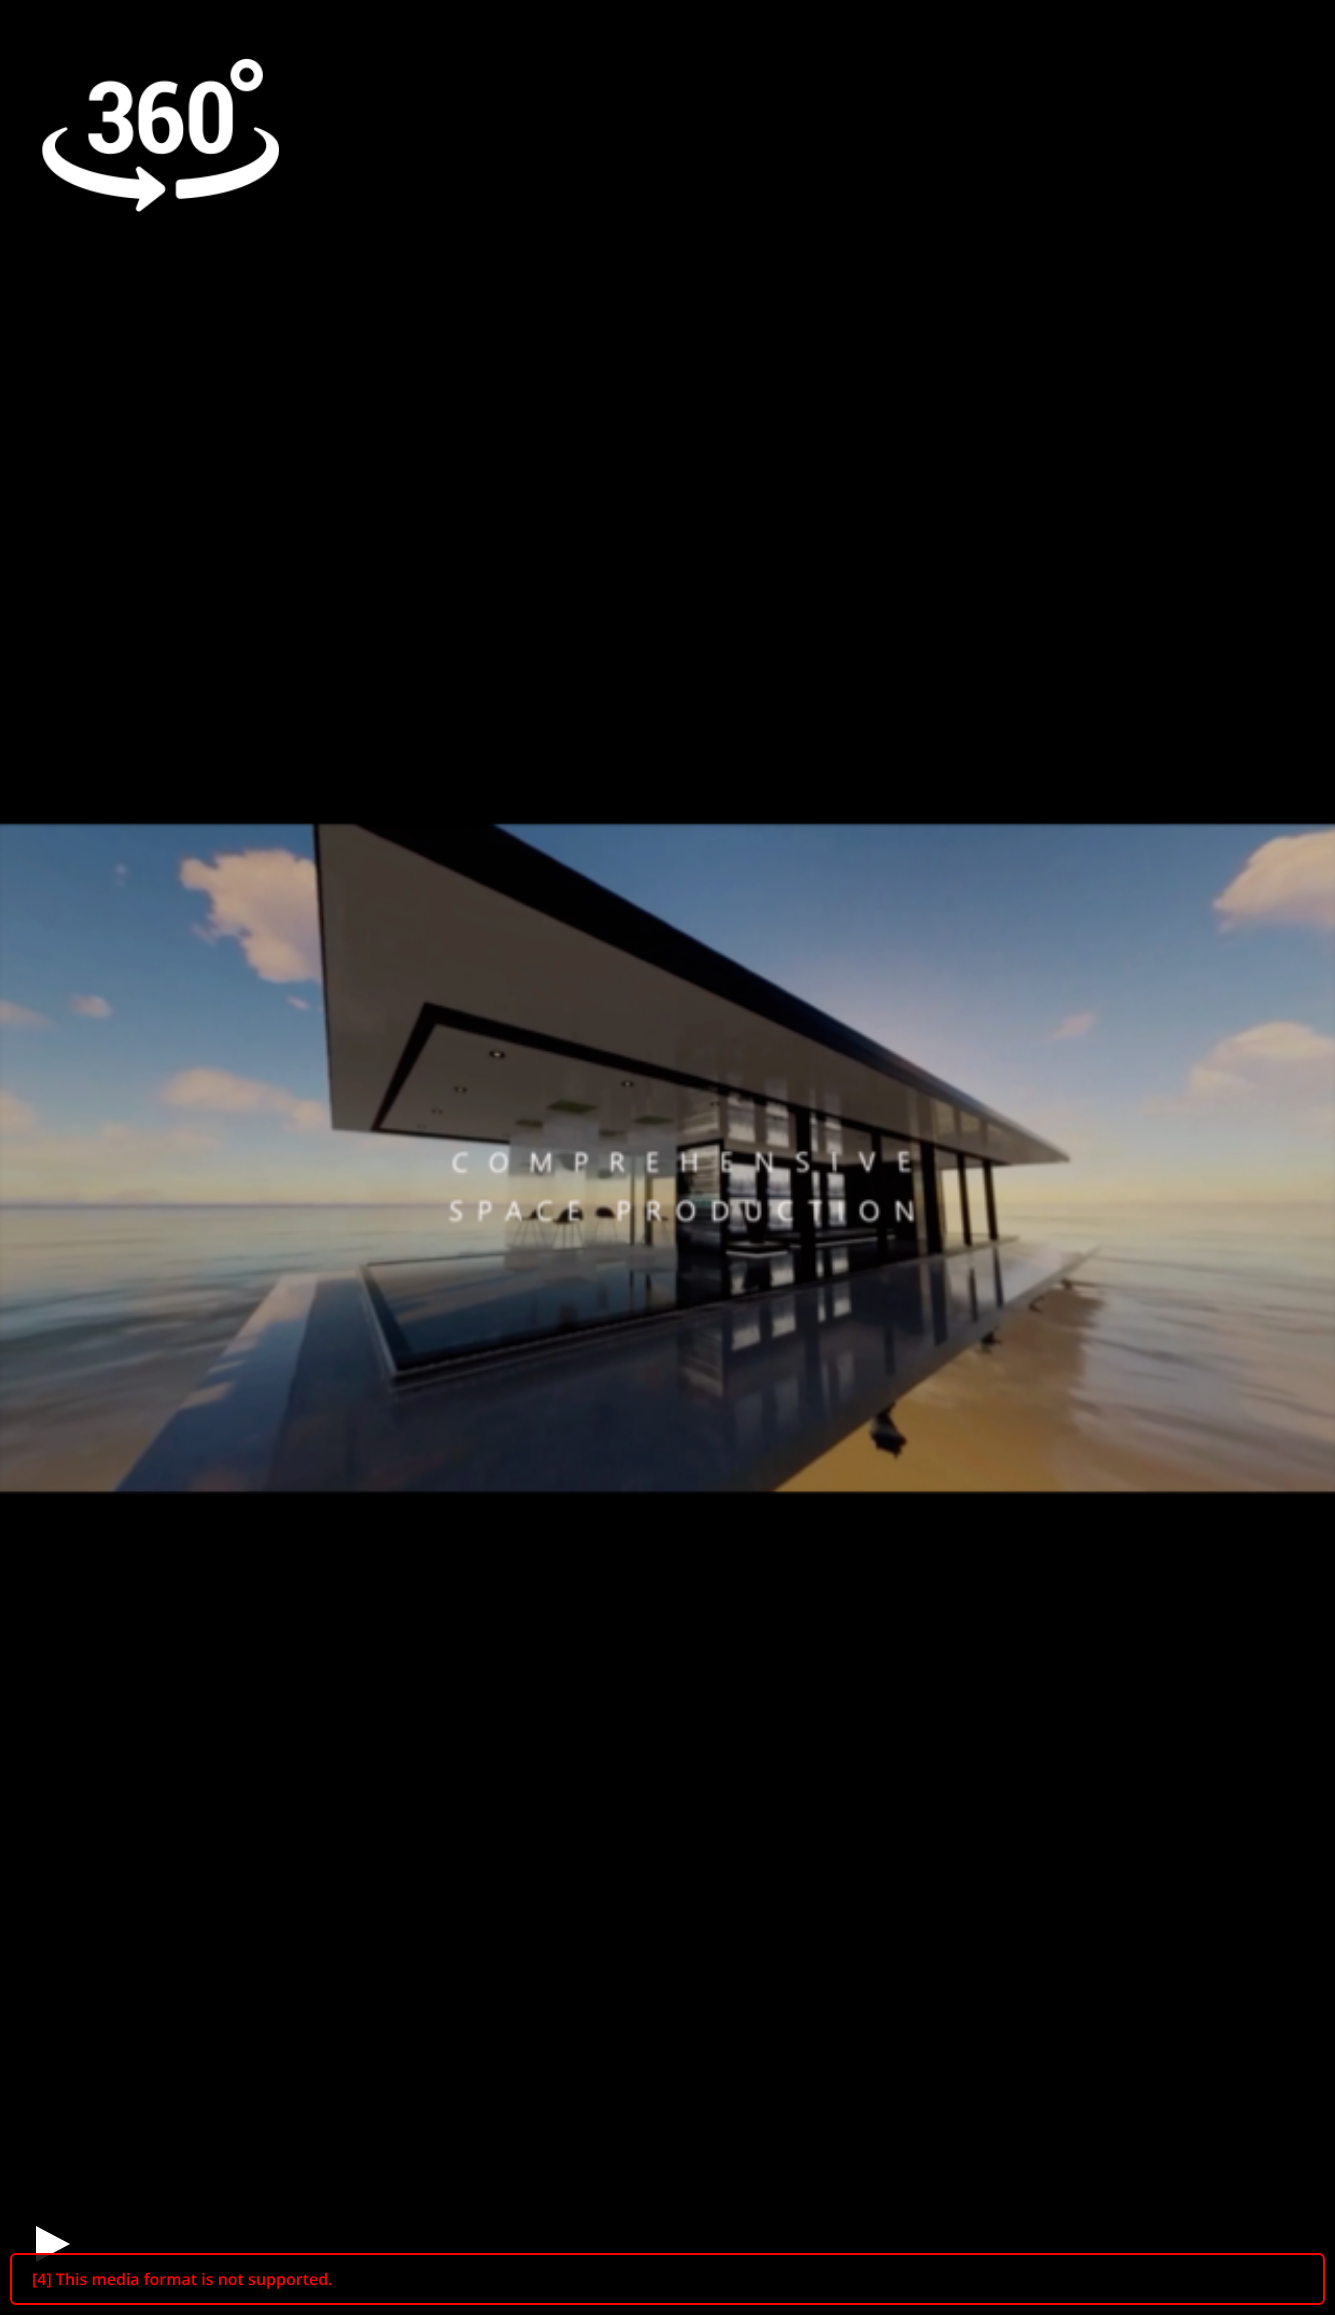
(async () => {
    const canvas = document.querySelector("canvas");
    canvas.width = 1335;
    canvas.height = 2315;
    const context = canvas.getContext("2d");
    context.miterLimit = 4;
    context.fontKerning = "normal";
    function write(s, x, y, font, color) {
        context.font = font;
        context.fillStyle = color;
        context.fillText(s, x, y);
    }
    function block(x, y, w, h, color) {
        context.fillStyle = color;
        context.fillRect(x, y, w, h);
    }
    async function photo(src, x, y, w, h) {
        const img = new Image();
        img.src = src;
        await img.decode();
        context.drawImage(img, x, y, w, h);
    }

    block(0, 0, 1335, 2315, "rgb(0, 0, 0)");
    await photo("media/1.png", 0, 823, 1335, 671);
    await photo("media/2.png", 42, 58, 237, 154);
    await photo("media/3.png", 36, 2226, 34, 36);
    context.fillStyle = "rgba(0, 0, 0, 0.85)";
    context.beginPath();
    context.roundRect(11, 2254, 1313, 50, 5);
    context.fill();
    context.strokeStyle = "rgb(255, 0, 0)";
    context.lineWidth = 2;
    context.stroke();
    write("[4] This media format is not supported.", 32, 2285, "600 16px Open Sans", "rgb(255, 0, 0)");
})();
